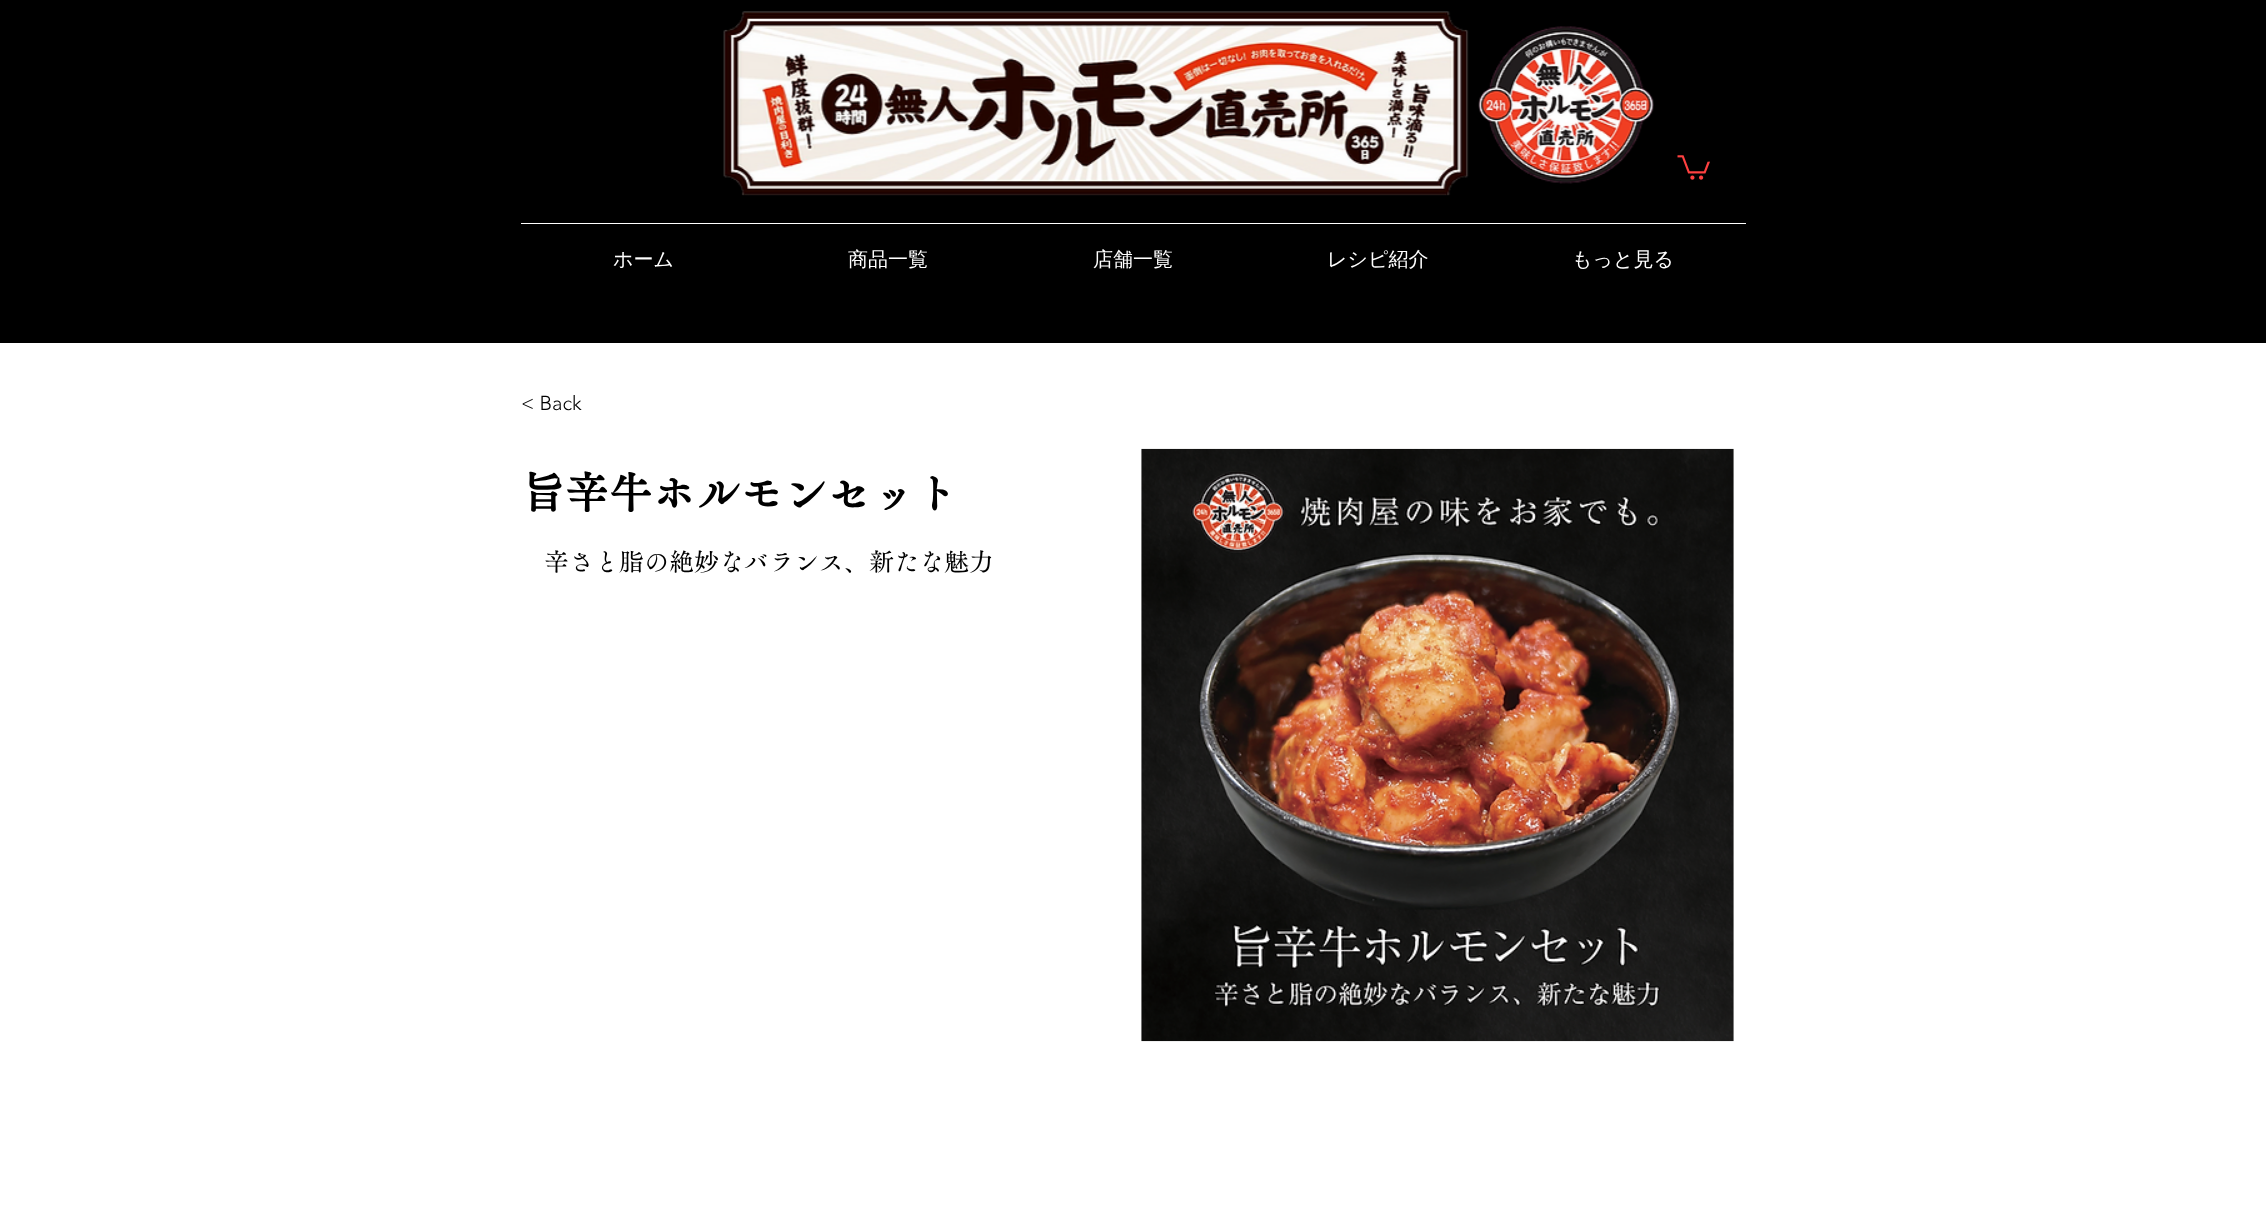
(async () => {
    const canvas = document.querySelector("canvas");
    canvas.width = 2266;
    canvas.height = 1212;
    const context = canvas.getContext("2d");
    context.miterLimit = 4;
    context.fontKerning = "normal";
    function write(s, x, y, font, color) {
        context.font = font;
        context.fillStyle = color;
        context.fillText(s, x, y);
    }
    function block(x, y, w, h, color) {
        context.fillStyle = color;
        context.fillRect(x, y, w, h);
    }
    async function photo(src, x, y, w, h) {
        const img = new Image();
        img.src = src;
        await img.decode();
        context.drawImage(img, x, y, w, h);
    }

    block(0, 0, 2266, 1212, "rgb(255, 255, 255)");
    block(0, 0, 2266, 343, "rgb(0, 0, 0)");
    await photo("media/1.png", 723, 11, 746, 185);
    await photo("media/2.png", 1478, 26, 176, 158);
    await photo("media/3.png", 1677, 155, 33, 25);
    block(521, 223, 1225, 1, "rgb(255, 255, 255)");
    write("ホーム", 613, 266, "500 20px WenQuanYi Zen Hei", "rgb(255, 255, 255)");
    write("商品一覧", 848, 266, "500 20px WenQuanYi Zen Hei", "rgb(255, 255, 255)");
    write("店舗一覧", 1093, 266, "500 20px WenQuanYi Zen Hei", "rgb(255, 255, 255)");
    write("レシピ紹介", 1327, 266, "500 20px WenQuanYi Zen Hei", "rgb(255, 255, 255)");
    write("もっと見る", 1572, 266, "500 20px WenQuanYi Zen Hei", "rgb(255, 255, 255)");
    write("< Back", 521, 410, "300 20px 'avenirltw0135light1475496'", "rgb(0, 0, 0)");
    write("旨辛牛ホルモンセット", 521, 509, "bold 43.75px 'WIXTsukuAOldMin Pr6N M'", "rgb(0, 0, 0)");
    write("辛さと脂の絶妙なバランス、新たな魅力", 544, 571, "500 25px 'WIXTsukuAOldMin Pr6N M'", "rgb(0, 0, 0)");
    await photo("media/4.png", 1141, 448, 593, 594);
})();
